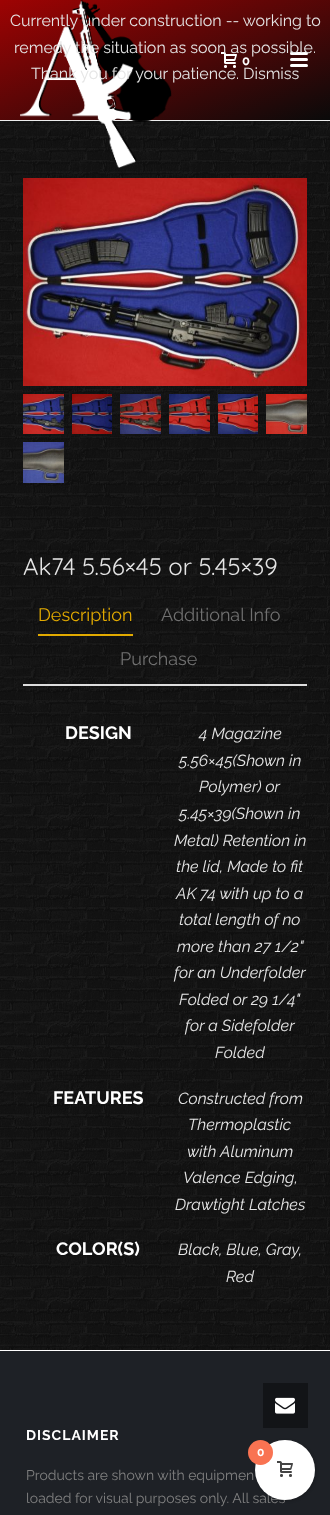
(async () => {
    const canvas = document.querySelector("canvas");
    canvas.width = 330;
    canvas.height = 1515;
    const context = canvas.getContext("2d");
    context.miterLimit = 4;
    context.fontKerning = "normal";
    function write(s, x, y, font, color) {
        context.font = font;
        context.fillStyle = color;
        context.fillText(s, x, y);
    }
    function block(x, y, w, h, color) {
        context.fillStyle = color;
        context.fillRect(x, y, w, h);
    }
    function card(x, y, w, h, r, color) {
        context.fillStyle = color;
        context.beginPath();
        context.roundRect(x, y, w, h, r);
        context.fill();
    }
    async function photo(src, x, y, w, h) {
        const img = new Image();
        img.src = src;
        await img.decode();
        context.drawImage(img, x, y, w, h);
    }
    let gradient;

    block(0, 0, 330, 1515, "rgb(30, 33, 38)");
    gradient = context.createLinearGradient(126, -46, 204, 166);
    gradient.addColorStop(0, "rgb(158, 3, 3)");
    gradient.addColorStop(1, "rgb(10, 10, 10)");
    context.fillStyle = gradient;
    context.fillRect(0, 0, 330, 120);
    block(0, 120, 330, 1, "rgb(237, 237, 237)");
    block(0, 121, 330, 1229, "rgb(0, 0, 0)");
    await photo("media/3.png", 0, 121, 330, 1229);
    await photo("media/1.png", 20, 0, 152, 168);
    write("Currently under construction -- working to", 10, 26, "100 16px Raleway", "rgb(229, 229, 229)");
    await photo("media/2.png", 221, 52, 16, 16);
    card(290, 52, 18, 3, 1.5, "rgb(255, 255, 255)");
    write("remedy the situation as soon as possible.", 14, 53, "100 16px Raleway", "rgb(229, 229, 229)");
    write("Thank you for your patience.", 31, 79, "100 16px Raleway", "rgb(229, 229, 229)");
    write("Dismiss", 243, 79, "100 16px Raleway", "rgb(229, 229, 229)");
    write("0", 242, 65, "bold 13px Raleway", "rgb(255, 255, 255)");
    card(290, 58, 18, 3, 1.5, "rgb(255, 255, 255)");
    card(290, 64, 18, 3, 1.5, "rgb(255, 255, 255)");
    await photo("media/4.png", 23, 178, 284, 208);
    await photo("media/5.png", 23, 394, 41, 40);
    await photo("media/6.png", 72, 394, 40, 40);
    await photo("media/7.png", 120, 394, 41, 40);
    await photo("media/8.png", 169, 394, 41, 40);
    await photo("media/9.png", 218, 394, 40, 40);
    await photo("media/10.png", 266, 394, 41, 40);
    await photo("media/11.png", 23, 442, 41, 41);
    write("Ak74 5.56×45 or 5.45×39", 23, 575, "24px Quicksand", "rgb(229, 229, 229)");
    write("Description", 38, 621, "100 18px Raleway", "rgb(226, 170, 0)");
    block(38, 634, 95, 2, "rgb(226, 170, 0)");
    write("Additional Info", 161, 621, "100 18px Raleway", "rgb(112, 112, 112)");
    write("Purchase", 120, 665, "100 18px Raleway", "rgb(112, 112, 112)");
    block(23, 684, 284, 2, "rgb(221, 221, 221)");
    block(85, 710, 222, 1, "rgba(0, 0, 0, 0.1)");
    block(47, 1075, 111, 1, "rgba(0, 0, 0, 0.1)");
    write("DESIGN", 65, 739, "bold 18px Raleway", "rgb(255, 255, 255)");
    block(267, 1075, 1, 1, "rgba(0, 0, 0, 0.1)");
    write("4 Magazine", 199, 739, "italic 16px Raleway", "rgb(229, 229, 229)");
    write("5.56×45(Shown in", 179, 766, "italic 16px Raleway", "rgb(229, 229, 229)");
    write("Polymer) or", 199, 792, "italic 16px Raleway", "rgb(229, 229, 229)");
    write("5.45×39(Shown in", 179, 819, "italic 16px Raleway", "rgb(229, 229, 229)");
    write("Metal) Retention in", 174, 846, "italic 16px Raleway", "rgb(229, 229, 229)");
    write("the lid, Made to fit", 176, 872, "italic 16px Raleway", "rgb(229, 229, 229)");
    write("AK 74 with up to a", 176, 899, "italic 16px Raleway", "rgb(229, 229, 229)");
    write("total length of no", 179, 925, "italic 16px Raleway", "rgb(229, 229, 229)");
    write("more than 27 1/2\"", 177, 952, "italic 16px Raleway", "rgb(229, 229, 229)");
    write("for an Underfolder", 174, 978, "italic 16px Raleway", "rgb(229, 229, 229)");
    write("Folded or 29 1/4\"", 179, 1005, "italic 16px Raleway", "rgb(229, 229, 229)");
    write("for a Sidefolder", 185, 1031, "italic 16px Raleway", "rgb(229, 229, 229)");
    write("Folded", 215, 1058, "italic 16px Raleway", "rgb(229, 229, 229)");
    block(23, 1226, 120, 1, "rgba(0, 0, 0, 0.1)");
    write("FEATURES", 53, 1104, "bold 18px Raleway", "rgb(255, 255, 255)");
    block(251, 1226, 2, 1, "rgba(0, 0, 0, 0.1)");
    write("Constructed from", 178, 1104, "italic 16px Raleway", "rgb(229, 229, 229)");
    write("Thermoplastic", 188, 1130, "italic 16px Raleway", "rgb(229, 229, 229)");
    write("with Aluminum", 187, 1157, "italic 16px Raleway", "rgb(229, 229, 229)");
    write("Valence Edging,", 183, 1183, "italic 16px Raleway", "rgb(229, 229, 229)");
    write("Drawtight Latches", 175, 1210, "italic 16px Raleway", "rgb(229, 229, 229)");
    block(173, 1299, 114, 1, "rgba(0, 0, 0, 0.1)");
    block(54, 1299, 120, 1, "rgba(0, 0, 0, 0.1)");
    write("COLOR(S)", 56, 1255, "bold 18px Raleway", "rgb(255, 255, 255)");
    write("Black, Blue, Gray,", 178, 1255, "italic 16px Raleway", "rgb(229, 229, 229)");
    write("Red", 226, 1282, "italic 16px Raleway", "rgb(229, 229, 229)");
    block(0, 1350, 330, 1, "rgb(255, 255, 255)");
    context.letterSpacing = "1px";
    write("DISCLAIMER", 26, 1440, "bold 14px Raleway", "rgb(255, 255, 255)");
    context.letterSpacing = "0px";
    write("Products are shown with equipmen", 26, 1480, "100 14px Raleway", "rgb(128, 128, 128)");
    write("loaded for visual purposes only. All sales", 26, 1503, "100 14px Raleway", "rgb(128, 128, 128)");
    block(263, 1383, 45, 45, "rgb(18, 20, 23)");
    await photo("media/12.png", 275, 1397, 20, 17);
    context.fillStyle = "rgba(0, 0, 0, 0.2)";
    context.filter = "blur(1.5px)";
    context.beginPath();
    context.roundRect(256, 1441, 60, 60, 30);
    context.fill();
    context.filter = "none";
    context.fillStyle = "rgb(255, 255, 255)";
    context.beginPath();
    context.arc(285, 1470, 30, 0, Math.PI * 2);
    context.fill();
    context.fillStyle = "rgb(249, 115, 82)";
    context.beginPath();
    context.arc(260.5, 1452.5, 12.5, 0, Math.PI * 2);
    context.fill();
    write("0", 257, 1456, "bold 12px Raleway", "rgb(255, 255, 255)");
    await photo("media/13.png", 277, 1461, 16, 16);
})();
